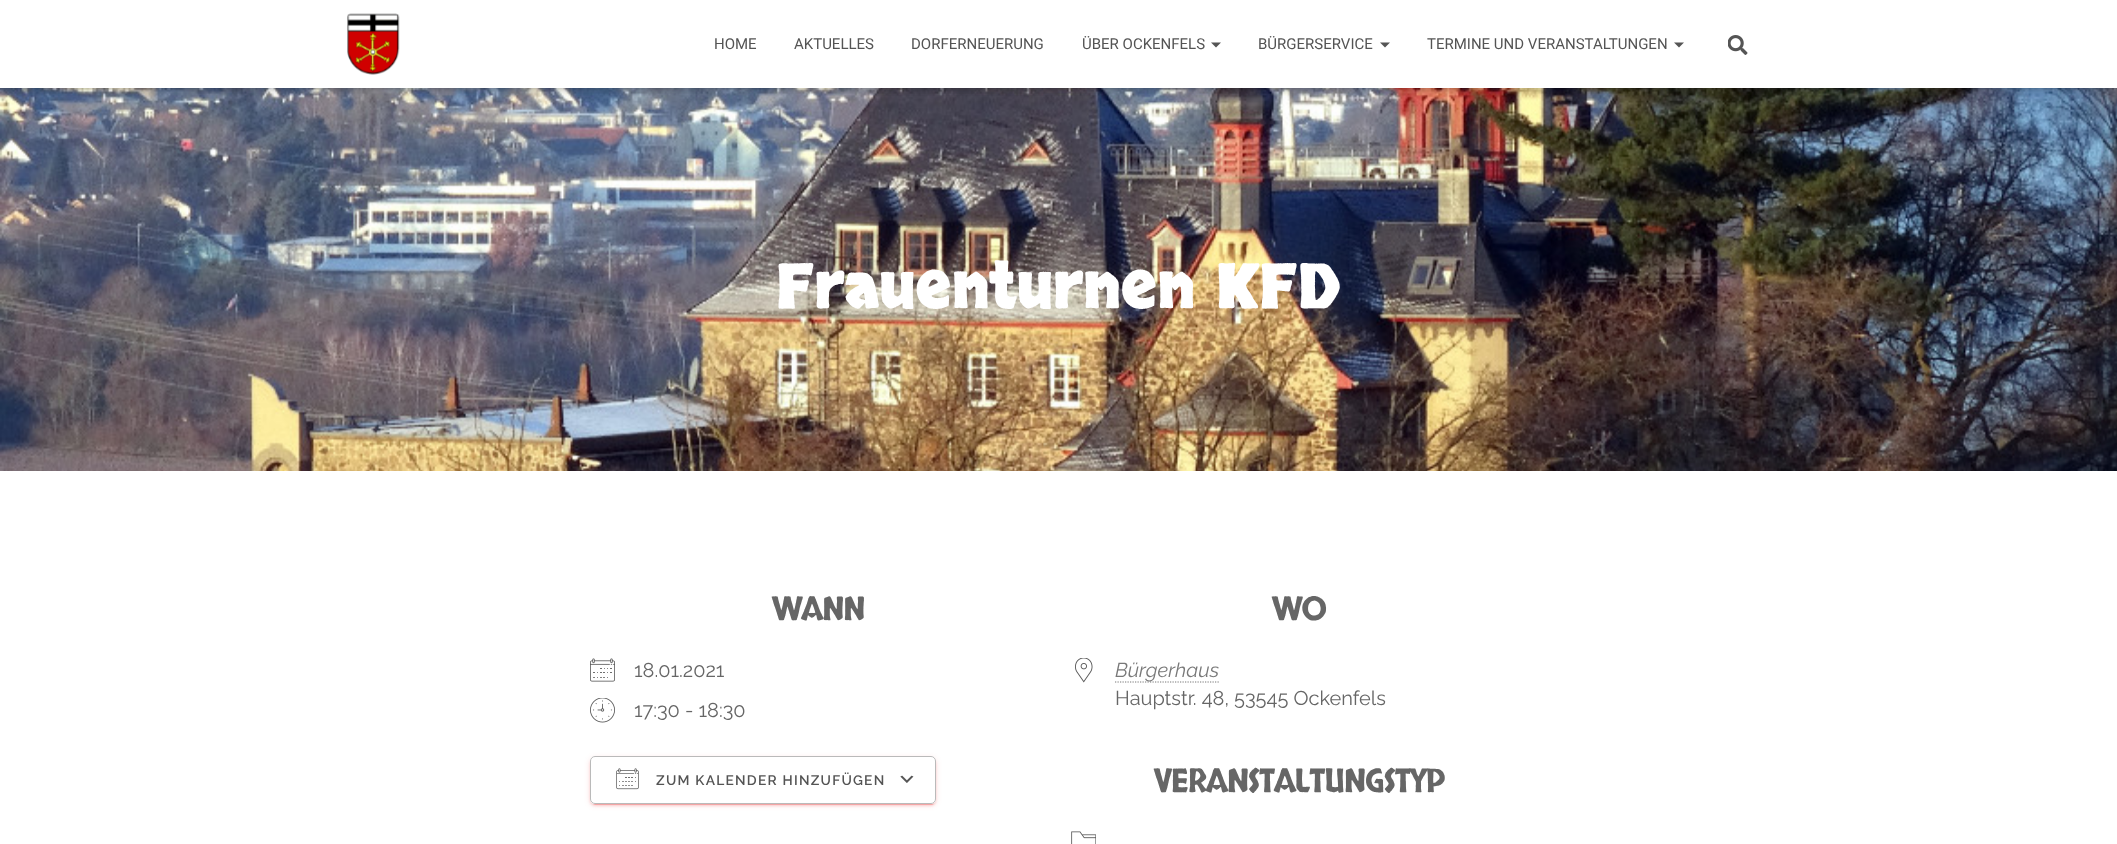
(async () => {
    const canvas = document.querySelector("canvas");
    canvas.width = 2117;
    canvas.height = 844;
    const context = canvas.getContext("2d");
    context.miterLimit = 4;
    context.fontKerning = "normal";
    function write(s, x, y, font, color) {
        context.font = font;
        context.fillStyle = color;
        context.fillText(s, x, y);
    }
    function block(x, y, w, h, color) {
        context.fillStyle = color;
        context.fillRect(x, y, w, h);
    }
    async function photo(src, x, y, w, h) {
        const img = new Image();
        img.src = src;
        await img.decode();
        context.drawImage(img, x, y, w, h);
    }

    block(0, 0, 2117, 844, "rgb(255, 255, 255)");
    await photo("media/3.png", 0, 88, 2117, 383);
    context.fillStyle = "rgba(0, 0, 0, 0.1)";
    context.filter = "blur(3px)";
    context.beginPath();
    context.rect(3, 8, 2112, 82);
    context.fill();
    context.filter = "none";
    context.fillStyle = "rgba(0, 0, 0, 0.12)";
    context.filter = "blur(6px)";
    context.beginPath();
    context.rect(0, 1, 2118, 88);
    context.fill();
    context.filter = "none";
    context.fillStyle = "rgba(0, 0, 0, 0.42)";
    context.filter = "blur(6px)";
    context.beginPath();
    context.rect(8, 9, 2102, 72);
    context.fill();
    context.filter = "none";
    block(0, 0, 2117, 88, "rgb(255, 255, 255)");
    await photo("media/1.png", 347, 13, 53, 62);
    write("HOME", 714, 49, "15px Roboto", "rgb(84, 84, 84)");
    write("AKTUELLES", 794, 49, "15px Roboto", "rgb(84, 84, 84)");
    write("DORFERNEUERUNG", 911, 49, "15px Roboto", "rgb(84, 84, 84)");
    write("ÜBER OCKENFELS", 1082, 49, "15px Roboto", "rgb(84, 84, 84)");
    context.fillStyle = "rgb(85, 85, 85)";
    context.beginPath();
    context.moveTo(1211, 42.5);
    context.lineTo(1221, 42.5);
    context.lineTo(1216, 47.5);
    context.closePath();
    context.fill();
    write("BÜRGERSERVICE", 1258, 49, "15px Roboto", "rgb(84, 84, 84)");
    context.fillStyle = "rgb(85, 85, 85)";
    context.beginPath();
    context.moveTo(1380, 42.5);
    context.lineTo(1390, 42.5);
    context.lineTo(1385, 47.5);
    context.closePath();
    context.fill();
    write("TERMINE UND VERANSTALTUNGEN", 1427, 49, "15px Roboto", "rgb(84, 84, 84)");
    context.fillStyle = "rgb(85, 85, 85)";
    context.beginPath();
    context.moveTo(1674, 42.5);
    context.lineTo(1684, 42.5);
    context.lineTo(1679, 47.5);
    context.closePath();
    context.fill();
    await photo("media/2.png", 1728, 35, 20, 20);
    write("Frauenturnen KFD", 776, 308, "bold 62.5px Skranji", "rgb(255, 255, 255)");
    context.letterSpacing = "-1.25px";
    write("WANN", 772, 620, "32.5px Skranji", "rgb(102, 102, 102)");
    await photo("media/4.png", 590, 658, 25, 24);
    context.letterSpacing = "0px";
    write("18.01.2021", 634, 677, "20px Raleway", "rgb(102, 102, 102)");
    await photo("media/5.png", 590, 698, 25, 25);
    write("17:30 - 18:30", 634, 717, "20px Raleway", "rgb(102, 102, 102)");
    context.save();
    context.beginPath();
    context.moveTo(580, 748);
    context.lineTo(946, 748);
    context.lineTo(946, 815);
    context.lineTo(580, 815);
    context.closePath();
    context.moveTo(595, 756);
    context.lineTo(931, 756);
    context.bezierCurveTo(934, 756, 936, 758, 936, 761);
    context.lineTo(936, 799);
    context.bezierCurveTo(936, 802, 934, 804, 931, 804);
    context.lineTo(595, 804);
    context.bezierCurveTo(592, 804, 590, 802, 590, 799);
    context.lineTo(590, 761);
    context.bezierCurveTo(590, 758, 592, 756, 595, 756);
    context.closePath();
    context.clip("evenodd");
    context.fillStyle = "rgba(224, 0, 0, 0.12)";
    context.filter = "blur(3px)";
    context.beginPath();
    context.roundRect(590, 758, 346, 47, 5);
    context.fill();
    context.filter = "none";
    context.restore();
    context.save();
    context.beginPath();
    context.moveTo(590, 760);
    context.lineTo(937, 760);
    context.lineTo(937, 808);
    context.lineTo(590, 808);
    context.closePath();
    context.moveTo(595, 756);
    context.lineTo(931, 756);
    context.bezierCurveTo(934, 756, 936, 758, 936, 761);
    context.lineTo(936, 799);
    context.bezierCurveTo(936, 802, 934, 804, 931, 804);
    context.lineTo(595, 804);
    context.bezierCurveTo(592, 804, 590, 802, 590, 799);
    context.lineTo(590, 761);
    context.bezierCurveTo(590, 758, 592, 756, 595, 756);
    context.closePath();
    context.clip("evenodd");
    context.fillStyle = "rgba(224, 0, 0, 0.2)";
    context.filter = "blur(0.5px)";
    context.beginPath();
    context.roundRect(593, 763, 341, 42, 2.5);
    context.fill();
    context.filter = "none";
    context.restore();
    context.save();
    context.beginPath();
    context.moveTo(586, 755);
    context.lineTo(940, 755);
    context.lineTo(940, 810);
    context.lineTo(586, 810);
    context.closePath();
    context.moveTo(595, 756);
    context.lineTo(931, 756);
    context.bezierCurveTo(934, 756, 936, 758, 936, 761);
    context.lineTo(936, 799);
    context.bezierCurveTo(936, 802, 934, 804, 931, 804);
    context.lineTo(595, 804);
    context.bezierCurveTo(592, 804, 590, 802, 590, 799);
    context.lineTo(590, 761);
    context.bezierCurveTo(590, 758, 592, 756, 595, 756);
    context.closePath();
    context.clip("evenodd");
    context.fillStyle = "rgba(224, 0, 0, 0.14)";
    context.filter = "blur(1px)";
    context.beginPath();
    context.roundRect(590, 759, 346, 47, 5);
    context.fill();
    context.filter = "none";
    context.restore();
    await photo("media/6.png", 900, 775, 14, 8);
    context.beginPath();
    context.roundRect(590.5, 756.5, 345, 47, 4.5);
    context.strokeStyle = "rgb(186, 186, 186)";
    context.stroke();
    await photo("media/7.png", 616, 768, 23, 22);
    context.letterSpacing = "1.25px";
    write("ZUM KALENDER HINZUFÜGEN", 656, 785, "600 13.75px Raleway", "rgb(84, 84, 84)");
    context.letterSpacing = "-1.25px";
    write("WO", 1272, 620, "32.5px Skranji", "rgb(102, 102, 102)");
    await photo("media/8.png", 1075, 658, 18, 25);
    context.beginPath();
    context.moveTo(1115, 682);
    context.lineTo(1219, 682);
    context.strokeStyle = "rgb(120, 120, 120)";
    context.lineWidth = 1.2;
    context.setLineDash([1.25, 1.25]);
    context.stroke();
    context.letterSpacing = "0px";
    write("Bürgerhaus", 1115, 677, "italic 20px Raleway", "rgb(120, 120, 120)");
    write("Hauptstr. 48, 53545 Ockenfels", 1115, 705, "20px Raleway", "rgb(102, 102, 102)");
    context.letterSpacing = "-1.25px";
    write("VERANSTALTUNGSTYP", 1154, 792, "32.5px Skranji", "rgb(102, 102, 102)");
    await photo("media/9.png", 1071, 831, 25, 13);
})();
